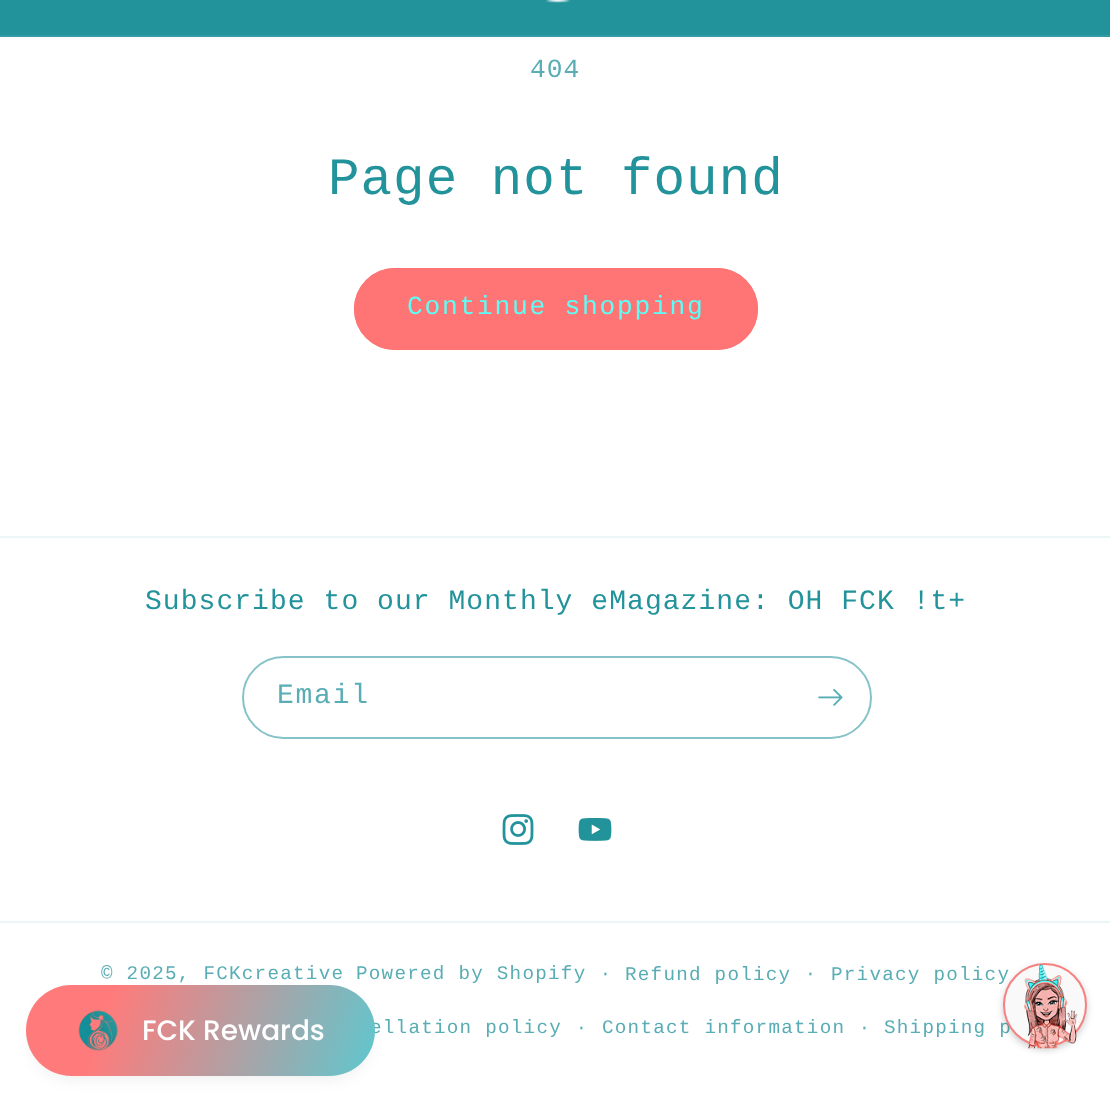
(async () => {
    const canvas = document.querySelector("canvas");
    canvas.width = 1110;
    canvas.height = 1101;
    const context = canvas.getContext("2d");
    context.miterLimit = 4;
    context.fontKerning = "normal";
    function write(s, x, y, font, color) {
        context.font = font;
        context.fillStyle = color;
        context.fillText(s, x, y);
    }
    function block(x, y, w, h, color) {
        context.fillStyle = color;
        context.fillRect(x, y, w, h);
    }
    function card(x, y, w, h, r, color) {
        context.fillStyle = color;
        context.beginPath();
        context.roundRect(x, y, w, h, r);
        context.fill();
    }
    async function photo(src, x, y, w, h) {
        const img = new Image();
        img.src = src;
        await img.decode();
        context.drawImage(img, x, y, w, h);
    }
    let gradient;

    block(0, 0, 1110, 1101, "rgb(255, 255, 255)");
    block(0, 0, 1110, 35, "rgb(34, 146, 155)");
    block(0, 35, 1110, 2, "rgb(52, 155, 163)");
    await photo("media/1.png", 545, 0, 26, 4);
    context.letterSpacing = "1.05px";
    write("404", 530, 77, "26.25px Liberation Mono", "rgb(89, 173, 180)");
    write("Page not found", 328, 194, "52.5px Liberation Mono", "rgb(34, 146, 155)");
    card(354, 268, 404, 82, 41, "rgb(255, 116, 116)");
    context.beginPath();
    context.roundRect(355, 269, 402, 80, 40);
    context.strokeStyle = "rgb(255, 116, 116)";
    context.lineWidth = 2;
    context.stroke();
    context.letterSpacing = "1.75px";
    write("Continue shopping", 407, 314, "26.25px Liberation Mono", "rgb(92, 255, 248)");
    block(0, 536, 1110, 2, "rgb(237, 246, 247)");
    context.letterSpacing = "1.05px";
    write("Subscribe to our Monthly eMagazine: OH FCK !t+", 145, 609, "28px Liberation Mono", "rgb(34, 146, 155)");
    context.beginPath();
    context.roundRect(243, 657, 628, 81, 40.5);
    context.strokeStyle = "rgb(133, 195, 200)";
    context.stroke();
    context.letterSpacing = "1.75px";
    write("Email", 277, 703, "28px Liberation Mono", "rgb(89, 173, 180)");
    await photo("media/2.png", 818, 689, 25, 17);
    await photo("media/3.png", 502, 814, 32, 31);
    await photo("media/4.png", 578, 817, 34, 24);
    block(0, 921, 1110, 2, "rgb(237, 246, 247)");
    context.letterSpacing = "1.25px";
    write("© 2025, FCKcreative", 101, 979, "19.25px Liberation Mono", "rgb(89, 173, 180)");
    write("Powered by Shopify", 356, 979, "19.25px Liberation Mono", "rgb(89, 173, 180)");
    write("·", 600, 979, "18px Liberation Mono", "rgb(89, 173, 180)");
    write("Refund policy", 625, 980, "19.25px Liberation Mono", "rgb(89, 173, 180)");
    write("·", 805, 979, "18px Liberation Mono", "rgb(89, 173, 180)");
    write("Privacy policy", 831, 980, "19.25px Liberation Mono", "rgb(89, 173, 180)");
    write("ellation policy", 370, 1033, "19.25px Liberation Mono", "rgb(89, 173, 180)");
    write("·", 576, 1033, "18px Liberation Mono", "rgb(89, 173, 180)");
    write("Contact information", 602, 1033, "19.25px Liberation Mono", "rgb(89, 173, 180)");
    write("·", 859, 1033, "18px Liberation Mono", "rgb(89, 173, 180)");
    write("Shipping p", 884, 1033, "19.25px Liberation Mono", "rgb(89, 173, 180)");
    context.fillStyle = "rgba(0, 0, 0, 0.2)";
    context.filter = "blur(3.5px)";
    context.beginPath();
    context.roundRect(1003, 966, 84, 84, 42);
    context.fill();
    context.filter = "none";
    context.fillStyle = "rgb(249, 249, 249)";
    context.beginPath();
    context.arc(1045, 1005, 41, 0, Math.PI * 2);
    context.fill();
    context.strokeStyle = "rgb(246, 129, 129)";
    context.stroke();
    await photo("media/5.png", 1023, 964, 55, 85);
    context.fillStyle = "rgba(68, 68, 68, 0.08)";
    context.filter = "blur(7px)";
    context.beginPath();
    context.roundRect(30, 996, 341, 84, 42);
    context.fill();
    context.filter = "none";
    gradient = context.createLinearGradient(31, 971, 505, 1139);
    gradient.addColorStop(0.17, "rgb(255, 123, 123)");
    gradient.addColorStop(1, "rgb(9, 239, 250)");
    context.fillStyle = gradient;
    context.beginPath();
    context.roundRect(26, 985, 349, 91, 45.5);
    context.fill();
    await photo("media/6.png", 78, 1010, 40, 41);
    context.letterSpacing = "0px";
    write("FCK Rewards", 142, 1040, "500 28px Poppins", "rgb(255, 255, 255)");
})();
